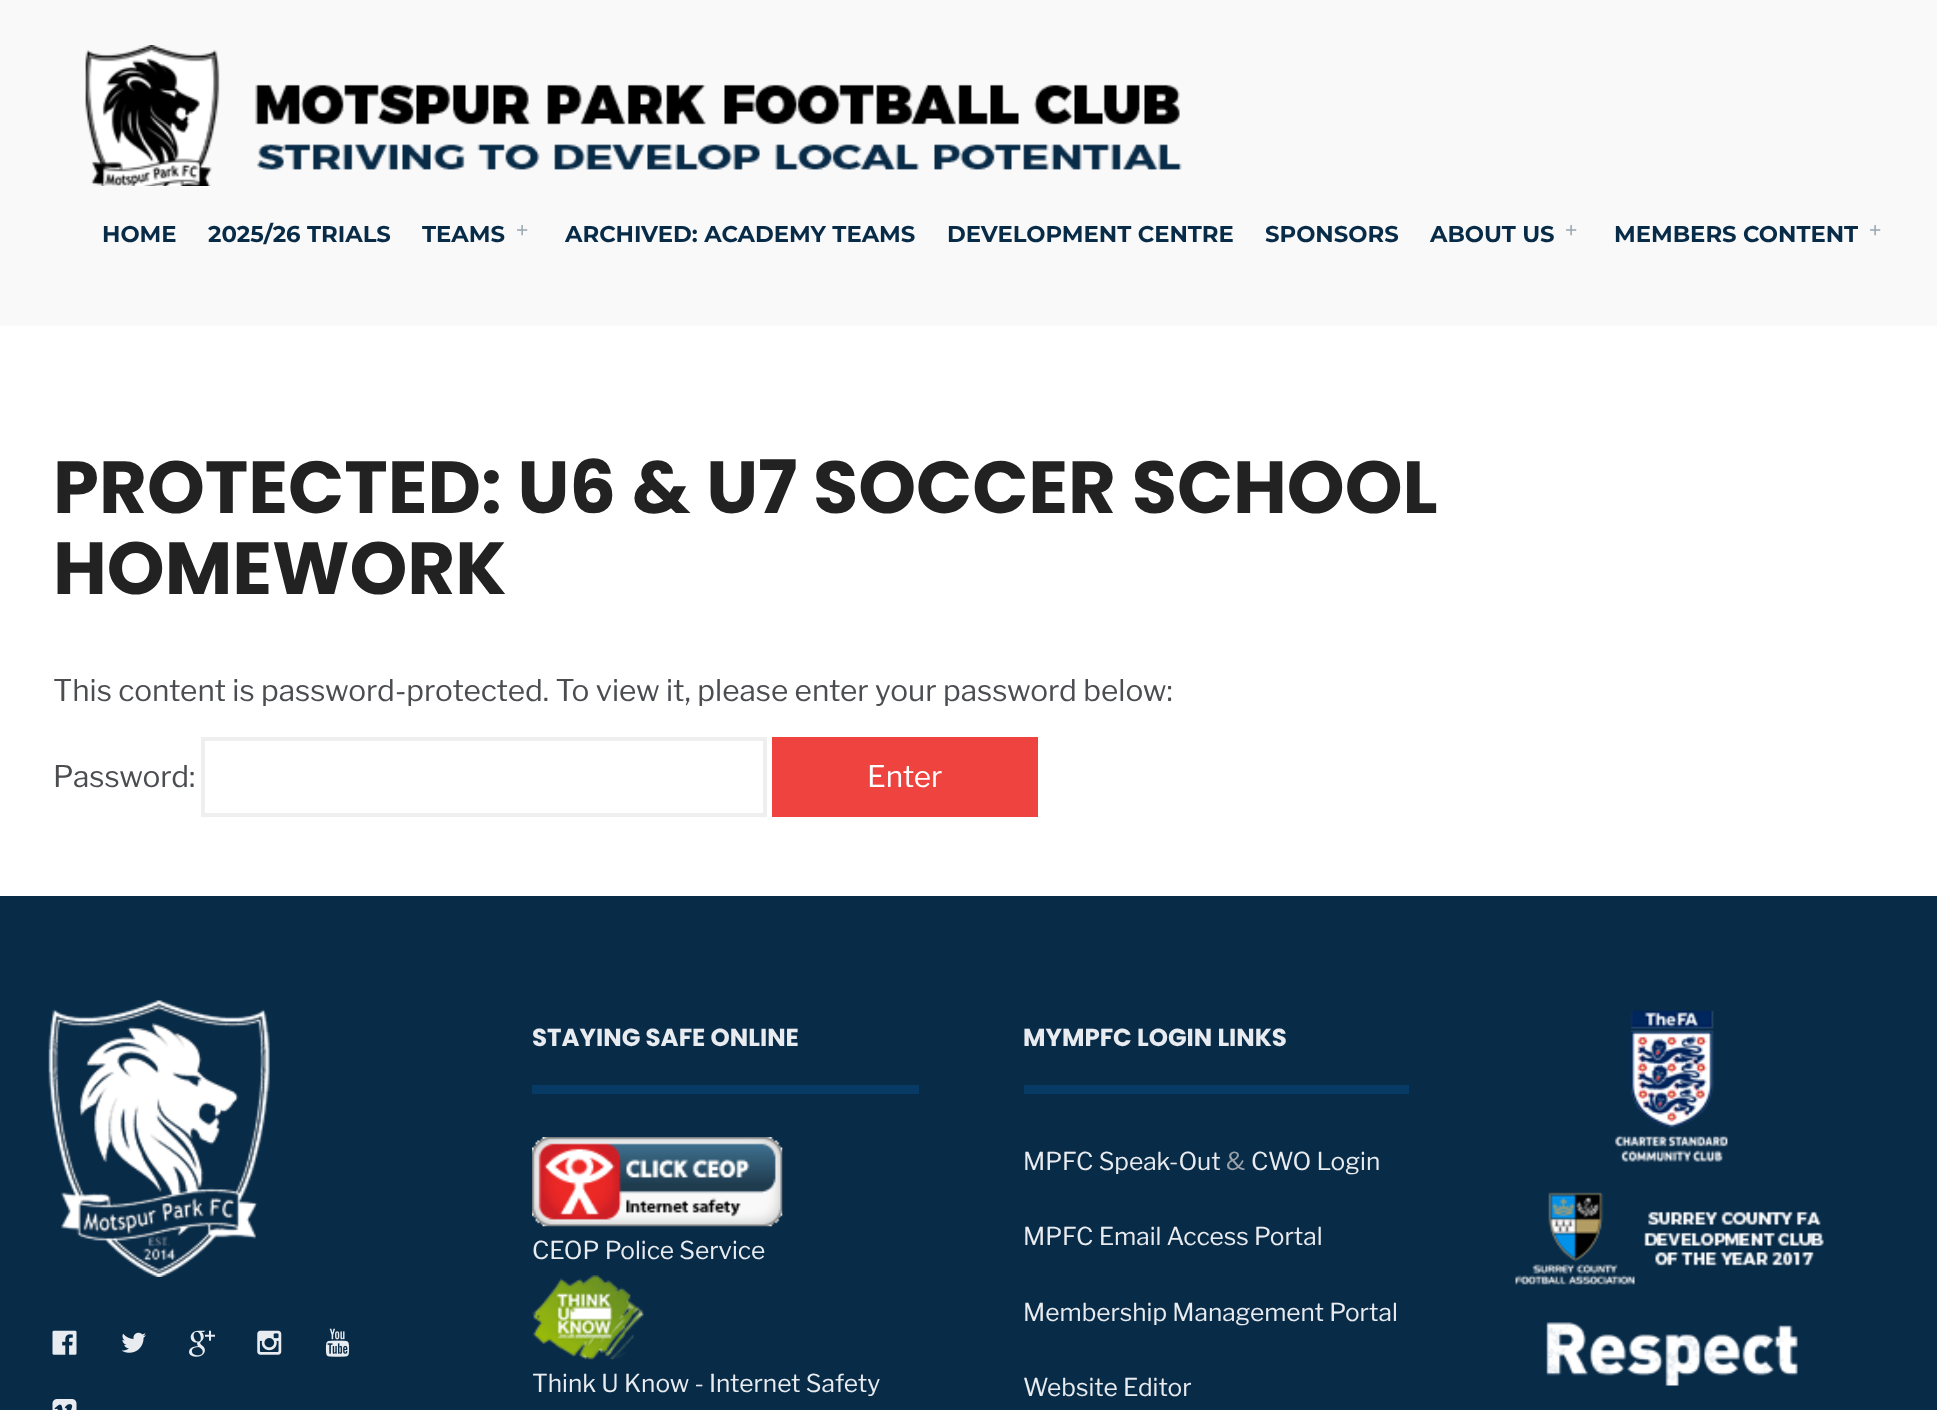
(async () => {
    const canvas = document.querySelector("canvas");
    canvas.width = 1937;
    canvas.height = 1410;
    const context = canvas.getContext("2d");
    context.miterLimit = 4;
    context.fontKerning = "normal";
    function write(s, x, y, font, color) {
        context.font = font;
        context.fillStyle = color;
        context.fillText(s, x, y);
    }
    function block(x, y, w, h, color) {
        context.fillStyle = color;
        context.fillRect(x, y, w, h);
    }
    async function photo(src, x, y, w, h) {
        const img = new Image();
        img.src = src;
        await img.decode();
        context.drawImage(img, x, y, w, h);
    }

    block(0, 0, 1937, 1410, "rgb(255, 255, 255)");
    block(0, 0, 1937, 326, "rgb(249, 249, 249)");
    await photo("media/1.png", 85, 45, 1097, 141);
    write("HOME", 102, 242, "bold 22.75px Montserrat", "rgb(8, 43, 72)");
    write("2025/26 TRIALS", 208, 242, "bold 22.75px Montserrat", "rgb(8, 43, 72)");
    write("TEAMS", 422, 242, "bold 22.75px Montserrat", "rgb(8, 43, 72)");
    write("+", 516, 237, "21px Liberation Sans", "rgb(153, 167, 178)");
    write("ARCHIVED: ACADEMY TEAMS", 565, 242, "bold 22.75px Montserrat", "rgb(8, 43, 72)");
    write("DEVELOPMENT CENTRE", 947, 242, "bold 22.75px Montserrat", "rgb(8, 43, 72)");
    write("SPONSORS", 1265, 242, "bold 22.75px Montserrat", "rgb(8, 43, 72)");
    write("ABOUT US", 1430, 242, "bold 22.75px Montserrat", "rgb(8, 43, 72)");
    write("+", 1565, 237, "21px Liberation Sans", "rgb(153, 167, 178)");
    write("MEMBERS CONTENT", 1614, 242, "bold 22.75px Montserrat", "rgb(8, 43, 72)");
    write("+", 1869, 237, "21px Liberation Sans", "rgb(153, 167, 178)");
    write("PROTECTED: U6 & U7 SOCCER SCHOOL", 53, 513, "bold 73.6px Poppins", "rgb(34, 34, 34)");
    write("HOMEWORK", 53, 594, "bold 73.6px Poppins", "rgb(34, 34, 34)");
    write("This content is password-protected. To view it, please enter your password below:", 53, 701, "29.75px Libre Franklin", "rgb(75, 77, 81)");
    write("Password:", 53, 787, "29.75px Libre Franklin", "rgb(75, 77, 81)");
    context.strokeStyle = "rgb(239, 239, 239)";
    context.lineWidth = 4;
    context.strokeRect(203, 739, 562, 76);
    block(772, 737, 266, 80, "rgb(239, 67, 63)");
    write("Enter", 867, 787, "29.75px Libre Franklin", "rgb(255, 255, 255)");
    block(0, 896, 1937, 514, "rgb(8, 43, 72)");
    await photo("media/2.png", 48, 1000, 222, 277);
    await photo("media/3.png", 52, 1330, 25, 25);
    await photo("media/4.png", 121, 1332, 25, 21);
    await photo("media/5.png", 189, 1330, 26, 27);
    await photo("media/6.png", 257, 1330, 25, 25);
    await photo("media/7.png", 325, 1328, 25, 29);
    await photo("media/8.png", 52, 1399, 25, 11);
    write("STAYING SAFE ONLINE", 532, 1046, "bold 24.5px Poppins", "rgb(232, 235, 239)");
    block(532, 1085, 387, 9, "rgb(7, 59, 102)");
    await photo("media/9.png", 532, 1137, 251, 90);
    write("CEOP Police Service", 532, 1259, "24.5px Libre Franklin", "rgb(232, 235, 239)");
    await photo("media/10.png", 532, 1275, 112, 85);
    write("Think U Know - Internet Safety", 532, 1392, "24.5px Libre Franklin", "rgb(232, 235, 239)");
    write("MYMPFC LOGIN LINKS", 1023, 1046, "bold 24.5px Poppins", "rgb(232, 235, 239)");
    block(1024, 1085, 385, 9, "rgb(7, 59, 102)");
    write("MPFC Speak-Out", 1023, 1170, "24.5px Libre Franklin", "rgb(232, 235, 239)");
    write("&", 1226, 1170, "24.5px Libre Franklin", "rgb(153, 160, 168)");
    write("CWO Login", 1251, 1170, "24.5px Libre Franklin", "rgb(232, 235, 239)");
    write("MPFC Email Access Portal", 1023, 1245, "24.5px Libre Franklin", "rgb(232, 235, 239)");
    write("Membership Management Portal", 1023, 1321, "24.5px Libre Franklin", "rgb(232, 235, 239)");
    write("Website Editor", 1023, 1396, "24.5px Libre Franklin", "rgb(232, 235, 239)");
    await photo("media/11.png", 1515, 1010, 309, 376);
})();
